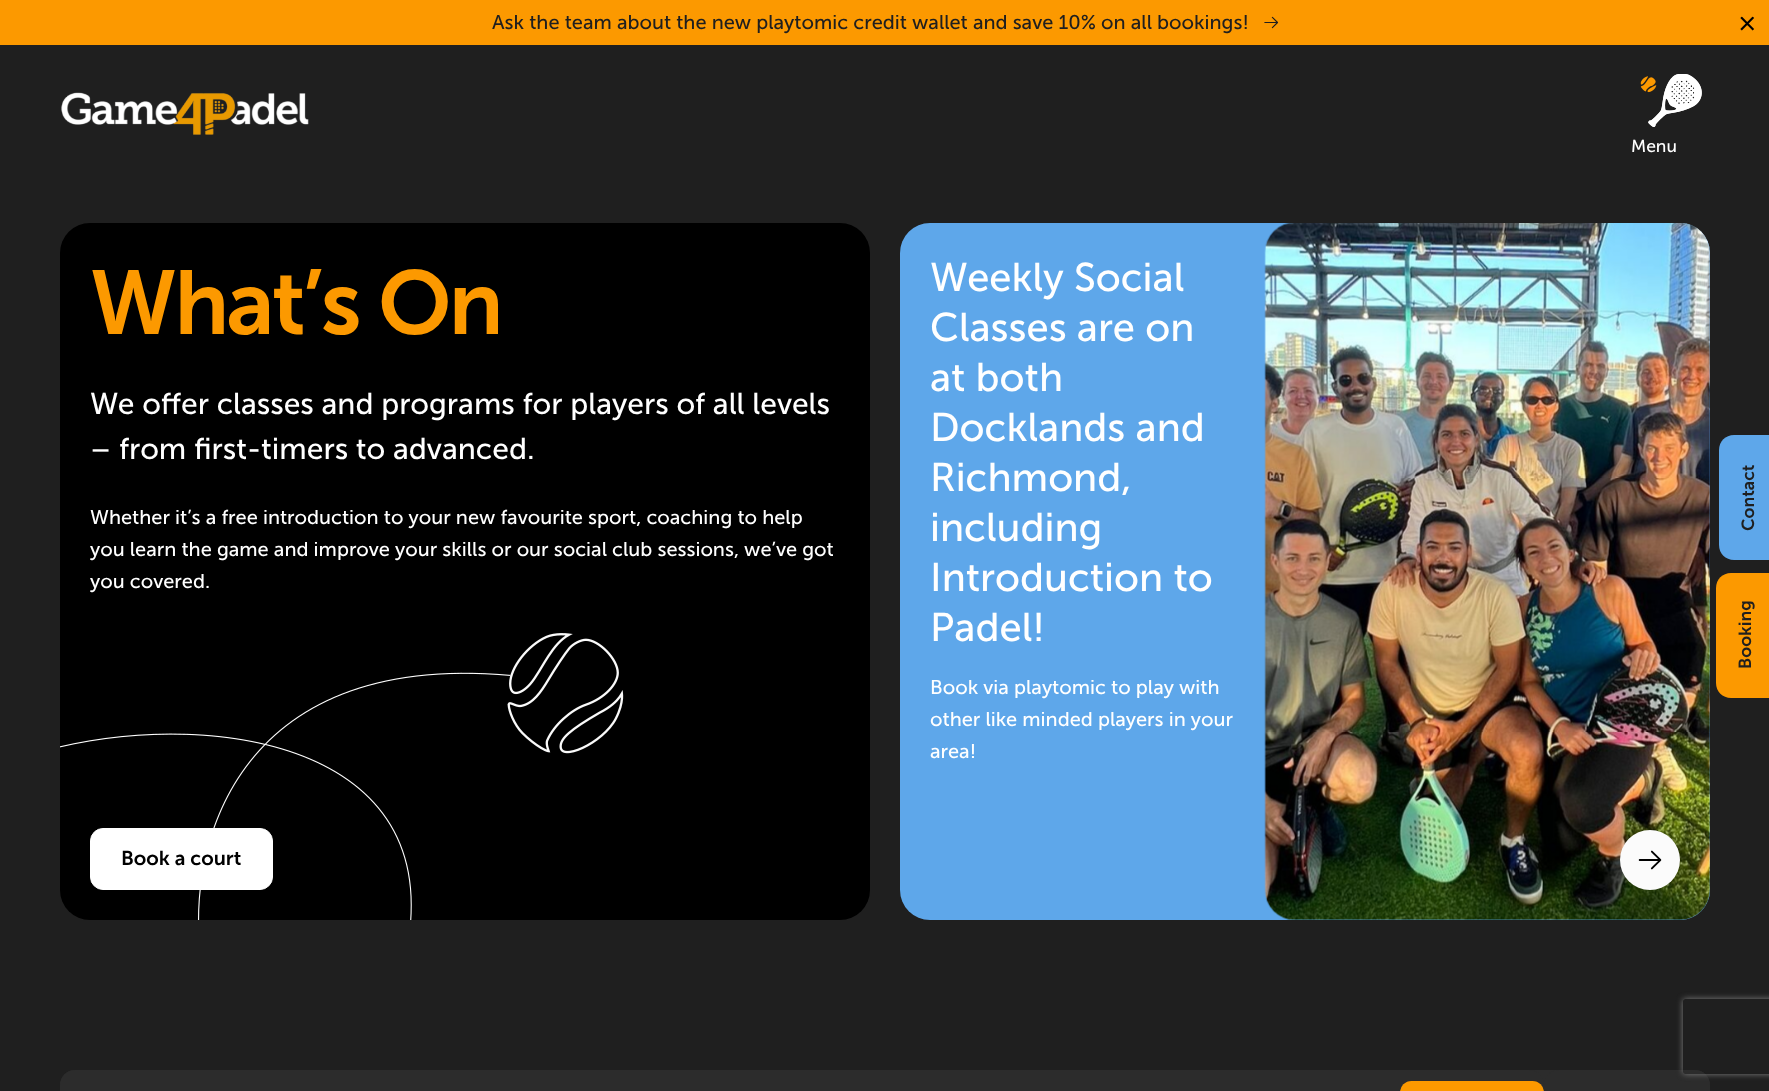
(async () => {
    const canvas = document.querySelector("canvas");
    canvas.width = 1769;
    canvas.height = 1091;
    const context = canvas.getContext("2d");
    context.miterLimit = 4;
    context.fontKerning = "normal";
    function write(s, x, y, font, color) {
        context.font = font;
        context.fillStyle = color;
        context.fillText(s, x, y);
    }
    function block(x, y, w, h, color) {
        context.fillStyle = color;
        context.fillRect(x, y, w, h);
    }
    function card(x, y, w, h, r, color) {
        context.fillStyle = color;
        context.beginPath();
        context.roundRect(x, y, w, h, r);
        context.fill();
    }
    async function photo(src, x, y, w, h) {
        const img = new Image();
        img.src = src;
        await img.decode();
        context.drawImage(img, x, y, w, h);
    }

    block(0, 0, 1769, 1091, "rgb(31, 31, 31)");
    block(0, 0, 1769, 45, "rgb(252, 153, 0)");
    write("Ask the team about the new playtomic credit wallet and save 10% on all bookings!", 492, 29, "20px 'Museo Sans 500'", "rgb(31, 31, 31)");
    await photo("media/1.png", 1264, 16, 15, 13);
    await photo("media/2.png", 1740, 16, 14, 15);
    await photo("media/3.png", 61, 92, 248, 43);
    await photo("media/4.png", 1648, 74, 54, 53);
    await photo("media/6.png", 1640, 76, 17, 17);
    await photo("media/5.png", 1648, 74, 54, 53);
    write("Menu", 1631, 152, "17.5px 'Museo Sans 500'", "rgb(255, 255, 255)");
    card(60, 223, 810, 697, 30, "rgb(0, 0, 0)");
    context.letterSpacing = "-2.75px";
    write("What’s On", 90, 334, "600 90px 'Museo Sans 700'", "rgb(252, 153, 0)");
    context.letterSpacing = "0px";
    write("We offer classes and programs for players of all levels", 90, 414, "30px 'Museo Sans 500'", "rgb(255, 255, 255)");
    write("– from first-timers to advanced.", 90, 459, "30px 'Museo Sans 500'", "rgb(255, 255, 255)");
    write("Whether it’s a free introduction to your new favourite sport, coaching to help", 90, 524, "20px 'Museo Sans 500'", "rgb(255, 255, 255)");
    write("you learn the game and improve your skills or our social club sessions, we’ve got", 90, 556, "20px 'Museo Sans 500'", "rgb(255, 255, 255)");
    write("you covered.", 90, 588, "20px 'Museo Sans 500'", "rgb(255, 255, 255)");
    await photo("media/7.png", 60, 633, 564, 287);
    context.beginPath();
    context.roundRect(90.5, 828.5, 182, 61, 12.5);
    context.fill();
    context.strokeStyle = "rgb(255, 255, 255)";
    context.stroke();
    write("Book a court", 121, 865, "600 20px 'Museo Sans 700'", "rgb(0, 0, 0)");
    card(900, 223, 810, 697, 30, "rgb(94, 167, 234)");
    write("Weekly Social", 930, 291, "40px 'Museo Sans 500'", "rgb(255, 255, 255)");
    write("Classes are on", 930, 341, "40px 'Museo Sans 500'", "rgb(255, 255, 255)");
    write("at both", 930, 391, "40px 'Museo Sans 500'", "rgb(255, 255, 255)");
    write("Docklands and", 930, 441, "40px 'Museo Sans 500'", "rgb(255, 255, 255)");
    write("Richmond,", 930, 491, "40px 'Museo Sans 500'", "rgb(255, 255, 255)");
    write("including", 930, 541, "40px 'Museo Sans 500'", "rgb(255, 255, 255)");
    write("Introduction to", 930, 591, "40px 'Museo Sans 500'", "rgb(255, 255, 255)");
    write("Padel!", 930, 641, "40px 'Museo Sans 500'", "rgb(255, 255, 255)");
    write("Book via playtomic to play with", 930, 694, "20px 'Museo Sans 500'", "rgb(255, 255, 255)");
    write("other like minded players in your", 930, 726, "20px 'Museo Sans 500'", "rgb(255, 255, 255)");
    write("area!", 930, 758, "20px 'Museo Sans 500'", "rgb(255, 255, 255)");
    await photo("media/8.png", 1264, 223, 446, 697);
    await photo("media/9.png", 1620, 830, 60, 60);
    card(60, 1070, 1650, 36, 15, "rgb(44, 44, 44)");
    card(60, 1070, 1484, 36, 15, "rgb(44, 44, 44)");
    card(1400, 1081, 144, 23, 13, "rgb(252, 153, 0)");
    card(1544, 1070, 166, 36, 15, "rgb(44, 44, 44)");
    context.fillStyle = "rgb(94, 167, 234)";
    context.beginPath();
    context.moveTo(1734, 435);
    context.lineTo(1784, 435);
    context.lineTo(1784, 560);
    context.lineTo(1734, 560);
    context.bezierCurveTo(1725.5, 560, 1719, 553.5, 1719, 545);
    context.lineTo(1719, 450);
    context.bezierCurveTo(1719, 441.5, 1725.5, 435, 1734, 435);
    context.closePath();
    context.fill();
    context.font = "600 17.5px 'Museo Sans 700'";
    context.fillStyle = "rgb(31, 31, 31)";
    context.save();
    context.translate(1754, 531);
    context.rotate(-90 * Math.PI / 180);
    context.fillText("Contact", 0, 0);
    context.restore();
    context.fillStyle = "rgb(252, 153, 0)";
    context.beginPath();
    context.moveTo(1731, 573);
    context.lineTo(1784, 573);
    context.lineTo(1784, 698);
    context.lineTo(1731, 698);
    context.bezierCurveTo(1722.5, 698, 1716, 691.5, 1716, 683);
    context.lineTo(1716, 588);
    context.bezierCurveTo(1716, 579.5, 1722.5, 573, 1731, 573);
    context.closePath();
    context.fill();
    context.fillStyle = "rgb(31, 31, 31)";
    context.save();
    context.translate(1751, 669);
    context.rotate(-90 * Math.PI / 180);
    context.fillText("Booking", 0, 0);
    context.restore();
    context.save();
    context.beginPath();
    context.moveTo(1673, 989);
    context.lineTo(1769, 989);
    context.lineTo(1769, 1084);
    context.lineTo(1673, 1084);
    context.closePath();
    context.moveTo(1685.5, 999);
    context.lineTo(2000.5, 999);
    context.bezierCurveTo(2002, 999, 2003, 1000, 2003, 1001.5);
    context.lineTo(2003, 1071.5);
    context.bezierCurveTo(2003, 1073, 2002, 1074, 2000.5, 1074);
    context.lineTo(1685.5, 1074);
    context.bezierCurveTo(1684, 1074, 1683, 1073, 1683, 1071.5);
    context.lineTo(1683, 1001.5);
    context.bezierCurveTo(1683, 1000, 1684, 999, 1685.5, 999);
    context.closePath();
    context.clip("evenodd");
    context.fillStyle = "rgb(128, 128, 128)";
    context.filter = "blur(3px)";
    context.beginPath();
    context.roundRect(1683, 999, 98, 75, 2.5);
    context.fill();
    context.filter = "none";
    context.restore();
})();
